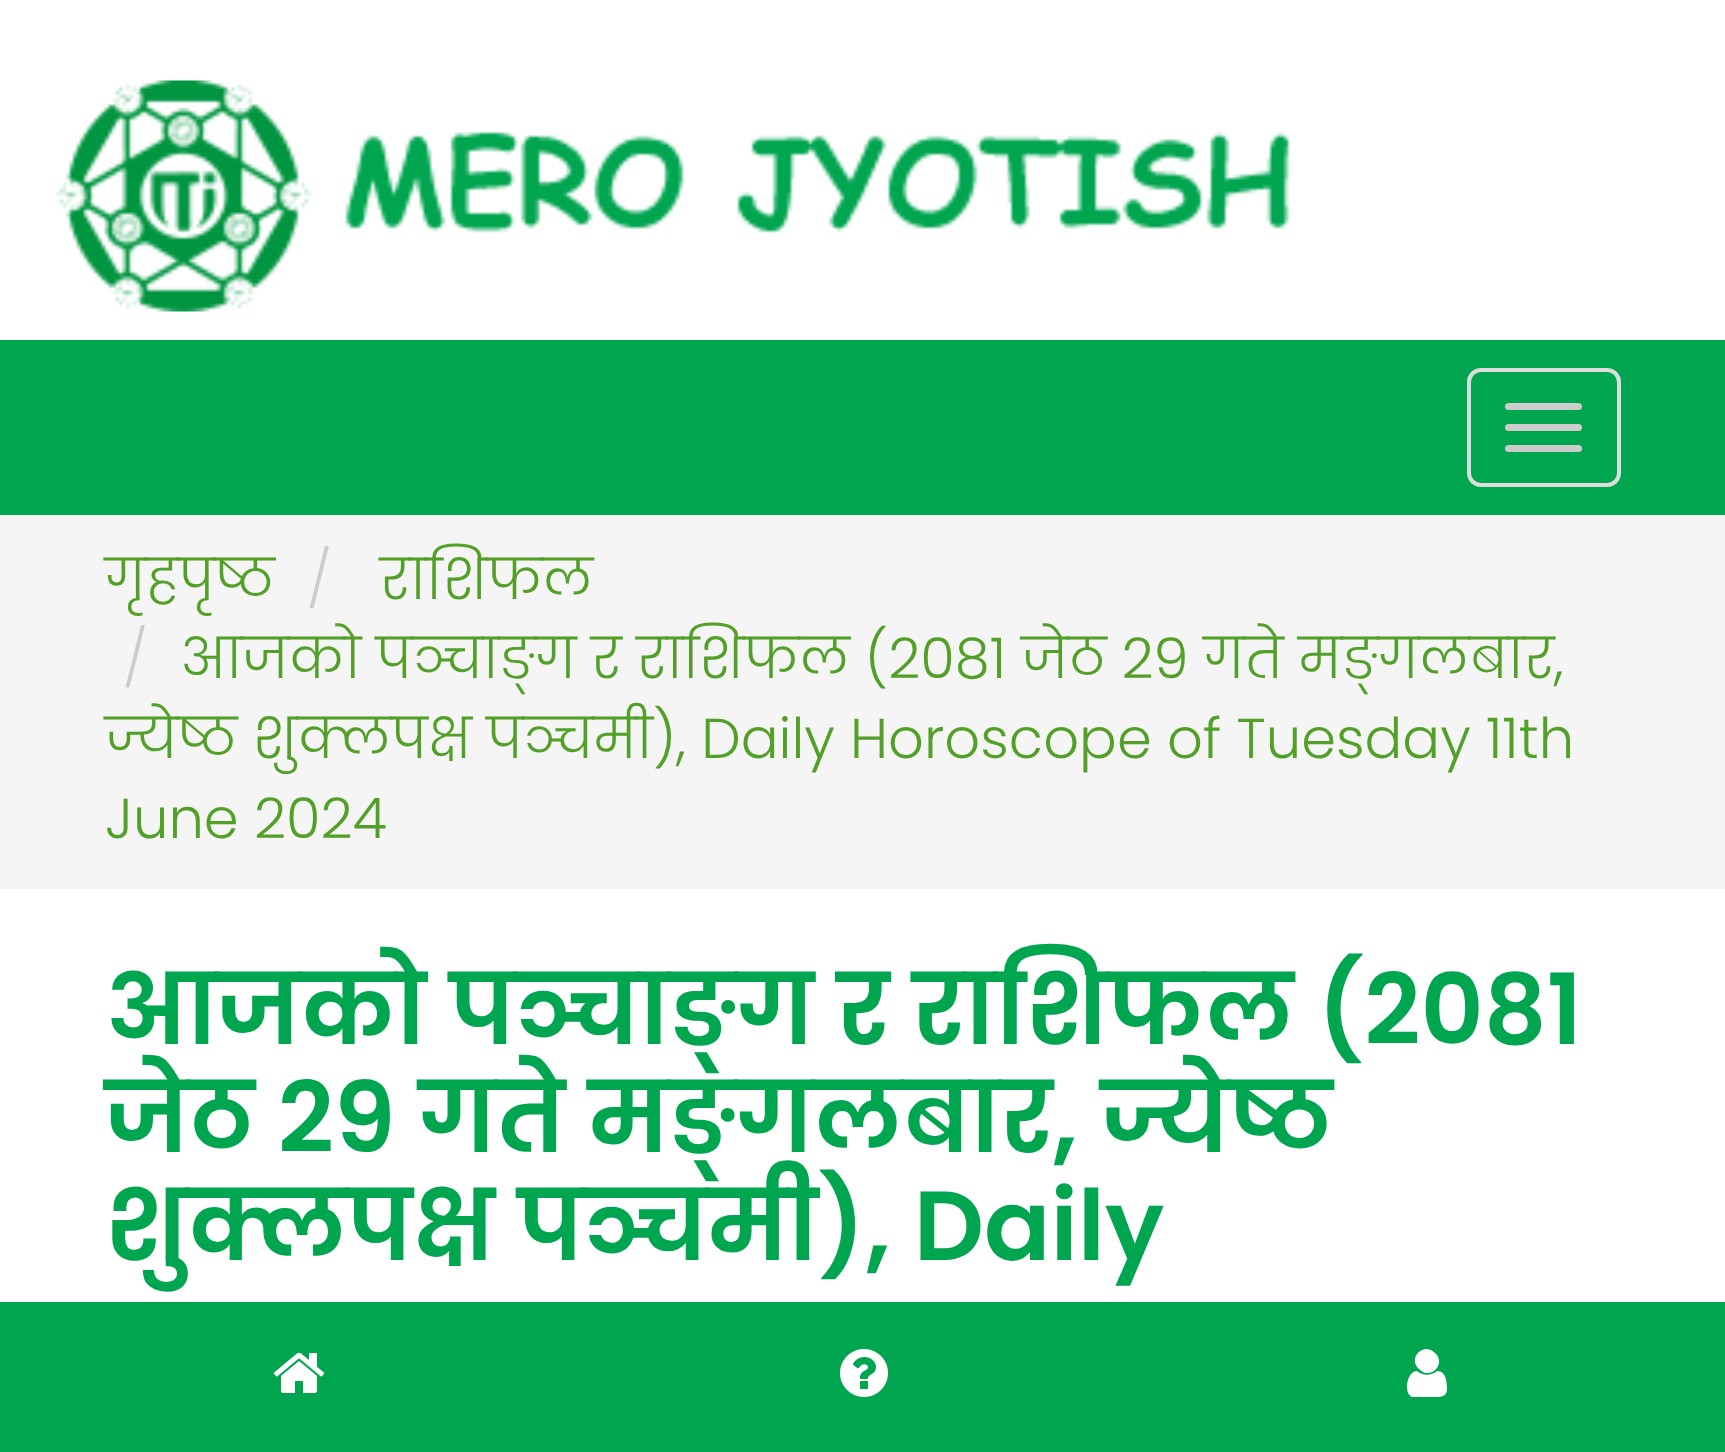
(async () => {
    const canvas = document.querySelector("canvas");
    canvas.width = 1725;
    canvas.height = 1452;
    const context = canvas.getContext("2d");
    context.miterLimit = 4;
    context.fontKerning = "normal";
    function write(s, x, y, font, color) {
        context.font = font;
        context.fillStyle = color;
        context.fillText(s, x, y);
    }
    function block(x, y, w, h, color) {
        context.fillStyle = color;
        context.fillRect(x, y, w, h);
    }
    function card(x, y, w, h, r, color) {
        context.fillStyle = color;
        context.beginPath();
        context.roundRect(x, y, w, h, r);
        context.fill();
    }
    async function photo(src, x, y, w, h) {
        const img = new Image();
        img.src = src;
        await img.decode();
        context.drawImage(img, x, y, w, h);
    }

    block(0, 0, 1725, 1452, "rgb(255, 255, 255)");
    await photo("media/1.png", 55, 80, 1235, 232);
    block(0, 340, 1725, 175, "rgb(0, 165, 80)");
    context.beginPath();
    context.roundRect(1469, 370, 150, 115, 12);
    context.strokeStyle = "rgb(221, 221, 221)";
    context.lineWidth = 4;
    context.stroke();
    card(1505, 403, 77, 7, 3.5, "rgb(204, 204, 204)");
    card(1505, 424, 77, 7, 3.5, "rgb(204, 204, 204)");
    card(1505, 445, 77, 7, 3.5, "rgb(204, 204, 204)");
    block(0, 515, 1725, 374, "rgb(245, 245, 245)");
    write("गृहपृष्ठ", 105, 599, "300 56px Poppins", "rgb(82, 160, 39)");
    write("/", 307, 599, "300 56px Poppins", "rgb(204, 204, 204)");
    write("राशिफल", 380, 599, "300 56px Poppins", "rgb(82, 160, 39)");
    write("/", 123, 678, "300 56px Poppins", "rgb(204, 204, 204)");
    write("आजको पञ्चाङ्ग र राशिफल (२०८१ जेठ २९ गते मङ्गलबार,", 180, 678, "300 56px Poppins", "rgb(82, 160, 39)");
    write("ज्येष्ठ शुक्लपक्ष पञ्चमी), Daily Horoscope of Tuesday 11th", 105, 758, "300 56px Poppins", "rgb(82, 160, 39)");
    write("June 2024", 105, 838, "300 56px Poppins", "rgb(82, 160, 39)");
    write("आजको पञ्चाङ्ग र राशिफल (२०८१", 105, 1044, "600 98px Poppins", "rgb(0, 165, 80)");
    write("जेठ २९ गते मङ्गलबार, ज्येष्ठ", 105, 1152, "600 98px Poppins", "rgb(0, 165, 80)");
    write("शुक्लपक्ष पञ्चमी), Daily", 105, 1260, "600 98px Poppins", "rgb(0, 165, 80)");
    block(0, 1302, 1725, 150, "rgb(0, 165, 80)");
    await photo("media/2.png", 273, 1352, 52, 41);
    await photo("media/3.png", 840, 1349, 48, 48);
    context.fillStyle = "rgb(255, 255, 255)";
    context.beginPath();
    context.moveTo(1447, 1389);
    context.bezierCurveTo(1447, 1396, 1442, 1397, 1436, 1397);
    context.lineTo(1412, 1397);
    context.bezierCurveTo(1403, 1393, 1407, 1371, 1417, 1371);
    context.bezierCurveTo(1423, 1376, 1431, 1376, 1437, 1371);
    context.bezierCurveTo(1446, 1371, 1447, 1382, 1447, 1389);
    context.closePath();
    context.moveTo(1435, 1353);
    context.bezierCurveTo(1447, 1364, 1430, 1381, 1419, 1369);
    context.bezierCurveTo(1407, 1358, 1424, 1341, 1435, 1353);
    context.closePath();
    context.fill();
})();
